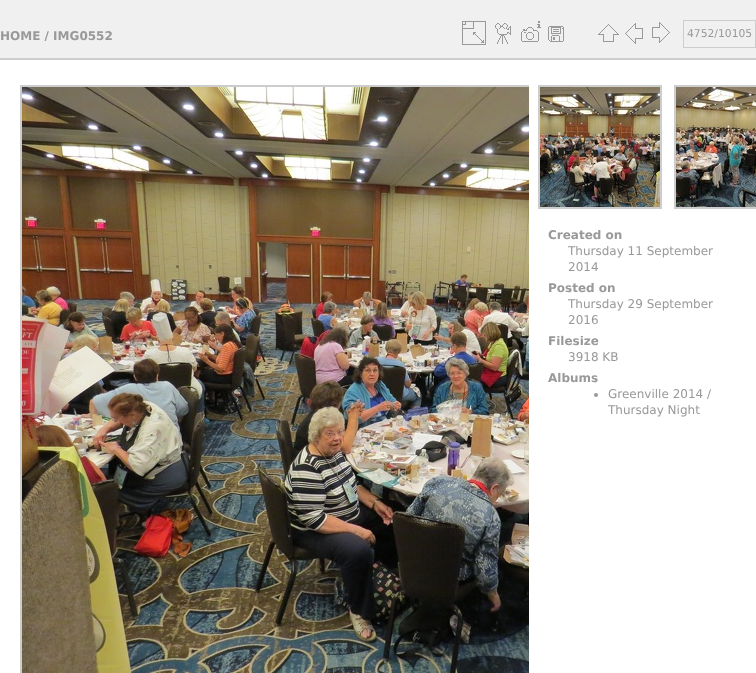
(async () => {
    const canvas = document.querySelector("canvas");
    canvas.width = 756;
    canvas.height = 673;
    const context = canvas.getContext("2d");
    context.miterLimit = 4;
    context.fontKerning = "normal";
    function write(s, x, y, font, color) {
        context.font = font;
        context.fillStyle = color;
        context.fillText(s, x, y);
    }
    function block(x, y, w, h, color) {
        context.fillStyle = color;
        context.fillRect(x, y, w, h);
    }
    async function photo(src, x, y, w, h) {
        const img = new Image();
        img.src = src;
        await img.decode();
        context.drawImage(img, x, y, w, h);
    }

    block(0, 0, 756, 673, "rgb(240, 240, 240)");
    write("HOME / IMG0552", 0, 40, "bold 12px DejaVu Sans", "rgb(153, 153, 153)");
    await photo("media/1.png", 462, 21, 24, 24);
    await photo("media/2.png", 495, 23, 16, 21);
    await photo("media/3.png", 521, 21, 20, 21);
    await photo("media/4.png", 548, 26, 16, 16);
    await photo("media/5.png", 598, 24, 21, 18);
    await photo("media/6.png", 625, 23, 18, 21);
    await photo("media/7.png", 652, 22, 18, 21);
    context.strokeStyle = "rgb(205, 205, 205)";
    context.strokeRect(683.5, 20.5, 72, 27);
    write("4752/10105", 687, 37, "10.75px DejaVu Sans", "rgb(153, 153, 153)");
    block(0, 60, 756, 613, "rgb(255, 255, 255)");
    block(0, 58, 756, 2, "rgb(205, 205, 205)");
    context.fillStyle = "rgb(153, 153, 153)";
    context.beginPath();
    context.arc(596, 395, 2, 0, Math.PI * 2);
    context.fill();
    context.save();
    context.beginPath();
    context.rect(0, 75, 529, 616);
    context.clip();
    context.lineWidth = 2;
    context.strokeRect(21, 86, 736, 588);
    context.restore();
    await photo("media/8.png", 22, 87, 507, 586);
    context.lineWidth = 2;
    context.strokeRect(539, 86, 122, 122);
    await photo("media/9.png", 540, 87, 120, 120);
    context.strokeRect(675, 86, 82, 122);
    await photo("media/10.png", 676, 87, 80, 120);
    write("Created on", 548, 239, "bold 12px DejaVu Sans", "rgb(153, 153, 153)");
    write("Thursday 11 September", 568, 255, "12px DejaVu Sans", "rgb(153, 153, 153)");
    write("2014", 568, 271, "12px DejaVu Sans", "rgb(153, 153, 153)");
    write("Posted on", 548, 292, "bold 12px DejaVu Sans", "rgb(153, 153, 153)");
    write("Thursday 29 September", 568, 308, "12px DejaVu Sans", "rgb(153, 153, 153)");
    write("2016", 568, 324, "12px DejaVu Sans", "rgb(153, 153, 153)");
    write("Filesize", 548, 345, "bold 12px DejaVu Sans", "rgb(153, 153, 153)");
    write("3918 KB", 568, 361, "12px DejaVu Sans", "rgb(153, 153, 153)");
    write("Albums", 548, 382, "bold 12px DejaVu Sans", "rgb(153, 153, 153)");
    write("Greenville 2014 /", 608, 398, "12px DejaVu Sans", "rgb(153, 153, 153)");
    write("Thursday Night", 608, 414, "12px DejaVu Sans", "rgb(153, 153, 153)");
})();
